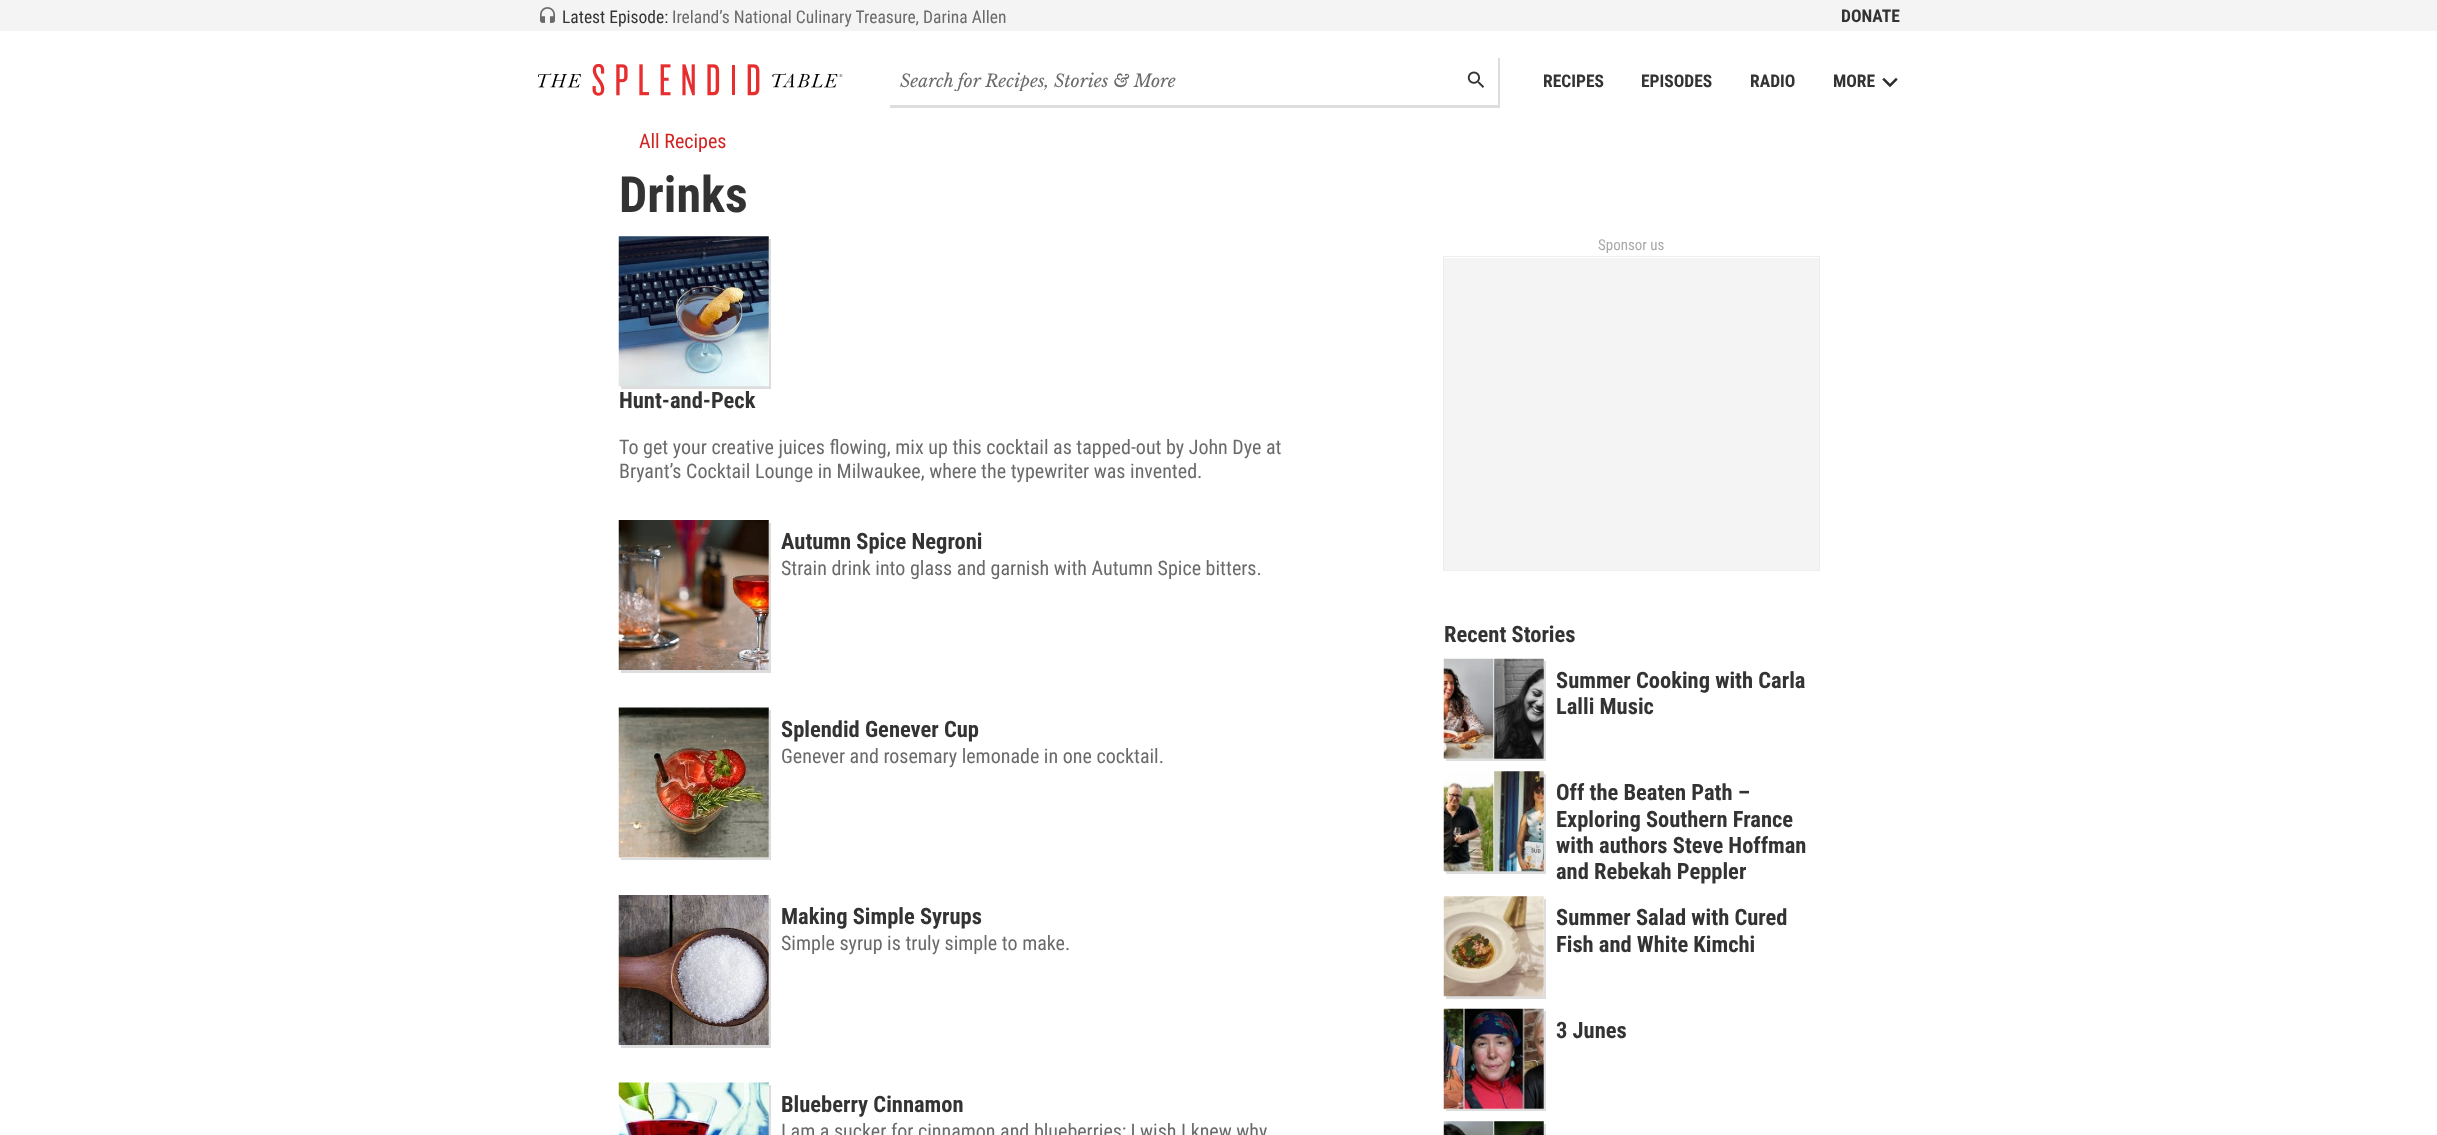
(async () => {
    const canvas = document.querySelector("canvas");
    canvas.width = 2437;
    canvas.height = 1135;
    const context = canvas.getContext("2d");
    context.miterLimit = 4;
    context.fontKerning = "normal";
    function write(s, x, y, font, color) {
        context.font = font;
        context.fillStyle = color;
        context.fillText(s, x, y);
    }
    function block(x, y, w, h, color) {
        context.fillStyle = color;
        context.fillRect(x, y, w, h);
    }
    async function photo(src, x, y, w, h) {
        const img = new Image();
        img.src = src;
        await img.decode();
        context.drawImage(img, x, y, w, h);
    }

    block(0, 0, 2437, 1135, "rgb(255, 255, 255)");
    block(0, 0, 2437, 31, "rgb(244, 244, 244)");
    await photo("media/1.png", 540, 7, 15, 16);
    write("Latest Episode:", 562, 23, "17.5px Roboto Condensed", "rgb(51, 51, 51)");
    write("Ireland’s National Culinary Treasure, Darina Allen", 672, 23, "17.5px Roboto Condensed", "rgb(106, 106, 106)");
    write("DONATE", 1841, 22, "bold 17.5px Roboto Condensed", "rgb(51, 51, 51)");
    await photo("media/2.png", 538, 64, 305, 32);
    context.fillStyle = "rgb(221, 221, 221)";
    context.beginPath();
    context.moveTo(890, 105);
    context.lineTo(890, 108);
    context.lineTo(1500, 108);
    context.lineTo(1500, 58);
    context.lineTo(1498, 58);
    context.lineTo(1498, 105);
    context.closePath();
    context.fill();
    context.save();
    context.beginPath();
    context.rect(900, 69, 543, 22);
    context.clip();
    write("Search for Recipes, Stories & More", 900, 87, "italic 17.5px Libre Baskerville", "rgb(106, 106, 106)");
    context.restore();
    await photo("media/3.png", 1467, 71, 18, 17);
    write("RECIPES", 1543, 87, "bold 17.5px Roboto Condensed", "rgb(51, 51, 51)");
    write("EPISODES", 1641, 87, "bold 17.5px Roboto Condensed", "rgb(51, 51, 51)");
    write("RADIO", 1750, 87, "bold 17.5px Roboto Condensed", "rgb(51, 51, 51)");
    write("MORE", 1833, 87, "bold 17.5px Roboto Condensed", "rgb(51, 51, 51)");
    await photo("media/4.png", 1882, 77, 16, 11);
    write("All Recipes", 639, 148, "20px Roboto Condensed", "rgb(209, 36, 33)");
    write("Drinks", 619, 212, "bold 50px Roboto Condensed", "rgb(51, 51, 51)");
    context.fillStyle = "rgb(221, 221, 221)";
    context.beginPath();
    context.moveTo(621, 386);
    context.lineTo(621, 389);
    context.lineTo(771, 389);
    context.lineTo(771, 239);
    context.lineTo(769, 239);
    context.lineTo(769, 386);
    context.closePath();
    context.fill();
    await photo("media/5.png", 618, 236, 151, 151);
    write("Hunt-and-Peck", 619, 408, "bold 22.5px Roboto Condensed", "rgb(51, 51, 51)");
    write("To get your creative juices flowing, mix up this cocktail as tapped-out by John Dye at", 619, 454, "20px Roboto Condensed", "rgb(106, 106, 106)");
    write("Bryant’s Cocktail Lounge in Milwaukee, where the typewriter was invented.", 619, 478, "20px Roboto Condensed", "rgb(106, 106, 106)");
    context.fillStyle = "rgb(221, 221, 221)";
    context.beginPath();
    context.moveTo(621, 670);
    context.lineTo(621, 673);
    context.lineTo(771, 673);
    context.lineTo(771, 523);
    context.lineTo(769, 523);
    context.lineTo(769, 670);
    context.closePath();
    context.fill();
    await photo("media/6.png", 618, 520, 151, 150);
    write("Autumn Spice Negroni", 781, 549, "bold 22.5px Roboto Condensed", "rgb(51, 51, 51)");
    write("Strain drink into glass and garnish with Autumn Spice bitters.", 781, 575, "20px Roboto Condensed", "rgb(106, 106, 106)");
    context.fillStyle = "rgb(221, 221, 221)";
    context.beginPath();
    context.moveTo(621, 858);
    context.lineTo(621, 860);
    context.lineTo(771, 860);
    context.lineTo(771, 710);
    context.lineTo(769, 710);
    context.lineTo(769, 858);
    context.closePath();
    context.fill();
    await photo("media/7.png", 618, 707, 151, 151);
    write("Splendid Genever Cup", 781, 737, "bold 22.5px Roboto Condensed", "rgb(51, 51, 51)");
    write("Genever and rosemary lemonade in one cocktail.", 781, 763, "20px Roboto Condensed", "rgb(106, 106, 106)");
    context.fillStyle = "rgb(221, 221, 221)";
    context.beginPath();
    context.moveTo(621, 1045);
    context.lineTo(621, 1048);
    context.lineTo(771, 1048);
    context.lineTo(771, 898);
    context.lineTo(769, 898);
    context.lineTo(769, 1045);
    context.closePath();
    context.fill();
    await photo("media/8.png", 618, 895, 151, 150);
    write("Making Simple Syrups", 781, 924, "bold 22.5px Roboto Condensed", "rgb(51, 51, 51)");
    write("Simple syrup is truly simple to make.", 781, 950, "20px Roboto Condensed", "rgb(106, 106, 106)");
    context.fillStyle = "rgb(221, 221, 221)";
    context.beginPath();
    context.moveTo(621, 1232);
    context.lineTo(621, 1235);
    context.lineTo(771, 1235);
    context.lineTo(771, 1085);
    context.lineTo(769, 1085);
    context.lineTo(769, 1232);
    context.closePath();
    context.fill();
    await photo("media/9.png", 618, 1082, 151, 53);
    write("Blueberry Cinnamon", 781, 1112, "bold 22.5px Roboto Condensed", "rgb(51, 51, 51)");
    write("I am a sucker for cinnamon and blueberries; I wish I knew why", 781, 1138, "20px Roboto Condensed", "rgb(106, 106, 106)");
    write("Sponsor us", 1598, 250, "15px Roboto Condensed", "rgb(169, 169, 169)");
    block(1444, 258, 375, 312, "rgb(244, 244, 244)");
    context.strokeStyle = "rgb(238, 238, 238)";
    context.strokeRect(1443.5, 256.5, 376, 314);
    write("Recent Stories", 1444, 642, "bold 22.5px Roboto Condensed", "rgb(51, 51, 51)");
    context.fillStyle = "rgb(221, 221, 221)";
    context.beginPath();
    context.moveTo(1446, 759);
    context.lineTo(1446, 761);
    context.lineTo(1546, 761);
    context.lineTo(1546, 661);
    context.lineTo(1544, 661);
    context.lineTo(1544, 759);
    context.closePath();
    context.fill();
    await photo("media/10.png", 1443, 658, 101, 101);
    write("Summer Cooking with Carla", 1556, 688, "bold 22.5px Roboto Condensed", "rgb(51, 51, 51)");
    write("Lalli Music", 1556, 714, "bold 22.5px Roboto Condensed", "rgb(51, 51, 51)");
    context.fillStyle = "rgb(221, 221, 221)";
    context.beginPath();
    context.moveTo(1446, 871);
    context.lineTo(1446, 874);
    context.lineTo(1546, 874);
    context.lineTo(1546, 774);
    context.lineTo(1544, 774);
    context.lineTo(1544, 871);
    context.closePath();
    context.fill();
    await photo("media/11.png", 1443, 771, 101, 101);
    write("Off the Beaten Path –", 1556, 800, "bold 22.5px Roboto Condensed", "rgb(51, 51, 51)");
    write("Exploring Southern France", 1556, 827, "bold 22.5px Roboto Condensed", "rgb(51, 51, 51)");
    write("with authors Steve Hoffman", 1556, 853, "bold 22.5px Roboto Condensed", "rgb(51, 51, 51)");
    write("and Rebekah Peppler", 1556, 879, "bold 22.5px Roboto Condensed", "rgb(51, 51, 51)");
    context.fillStyle = "rgb(221, 221, 221)";
    context.beginPath();
    context.moveTo(1446, 996);
    context.lineTo(1446, 999);
    context.lineTo(1546, 999);
    context.lineTo(1546, 899);
    context.lineTo(1544, 899);
    context.lineTo(1544, 996);
    context.closePath();
    context.fill();
    await photo("media/12.png", 1443, 896, 101, 101);
    write("Summer Salad with Cured", 1556, 925, "bold 22.5px Roboto Condensed", "rgb(51, 51, 51)");
    write("Fish and White Kimchi", 1556, 952, "bold 22.5px Roboto Condensed", "rgb(51, 51, 51)");
    context.fillStyle = "rgb(221, 221, 221)";
    context.beginPath();
    context.moveTo(1446, 1109);
    context.lineTo(1446, 1111);
    context.lineTo(1546, 1111);
    context.lineTo(1546, 1011);
    context.lineTo(1544, 1011);
    context.lineTo(1544, 1109);
    context.closePath();
    context.fill();
    await photo("media/13.png", 1443, 1008, 101, 101);
    write("3 Junes", 1556, 1038, "bold 22.5px Roboto Condensed", "rgb(51, 51, 51)");
    context.fillStyle = "rgb(221, 221, 221)";
    context.beginPath();
    context.moveTo(1446, 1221);
    context.lineTo(1446, 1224);
    context.lineTo(1546, 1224);
    context.lineTo(1546, 1124);
    context.lineTo(1544, 1124);
    context.lineTo(1544, 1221);
    context.closePath();
    context.fill();
    await photo("media/14.png", 1443, 1121, 101, 14);
})();
